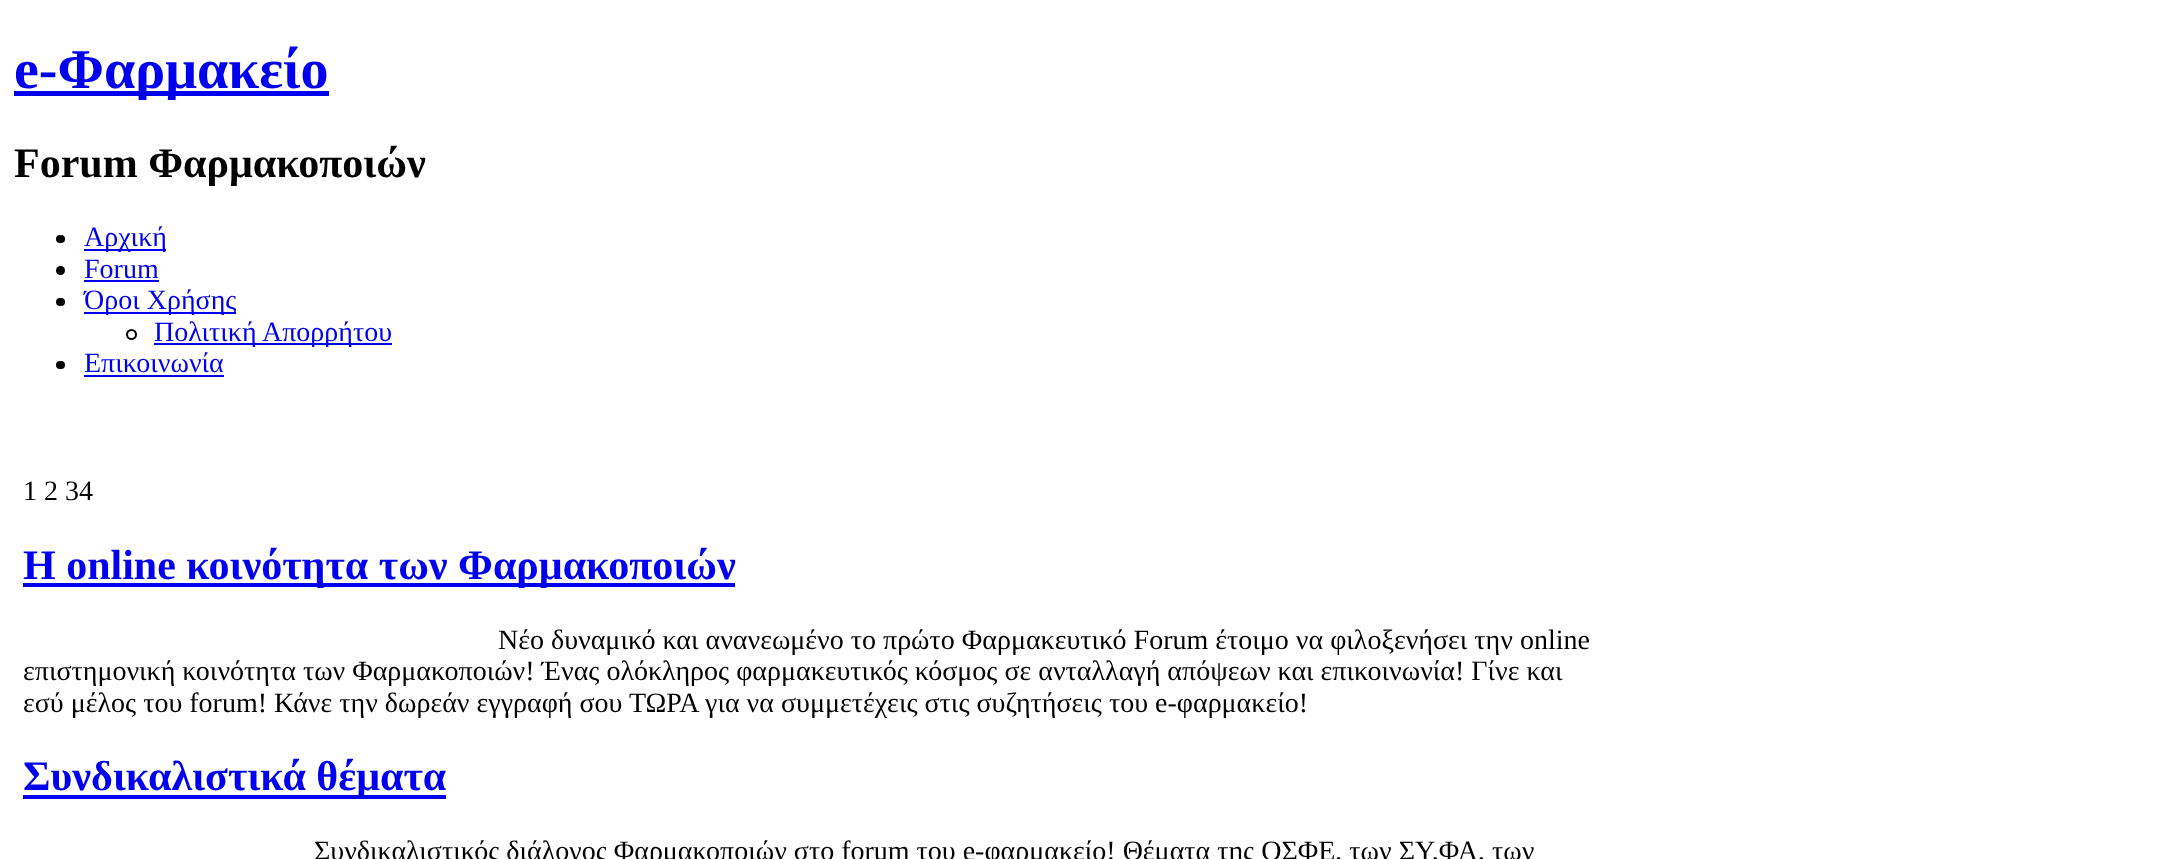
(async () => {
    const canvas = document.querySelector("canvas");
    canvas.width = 2165;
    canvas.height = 859;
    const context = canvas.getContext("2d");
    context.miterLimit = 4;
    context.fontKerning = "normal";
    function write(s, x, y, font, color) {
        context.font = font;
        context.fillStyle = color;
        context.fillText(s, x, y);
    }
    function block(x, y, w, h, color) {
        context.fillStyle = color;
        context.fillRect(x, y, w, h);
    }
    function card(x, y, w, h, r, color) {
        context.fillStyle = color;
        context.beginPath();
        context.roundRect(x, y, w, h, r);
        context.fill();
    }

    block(0, 0, 2165, 859, "rgb(255, 255, 255)");
    block(14, 91, 315, 5, "rgb(0, 0, 238)");
    write("e-Φαρμακείο", 14, 88, "bold 56px Liberation Serif", "rgb(0, 0, 238)");
    write("Forum Φαρμακοποιών", 14, 177, "bold 42px Liberation Serif", "rgb(0, 0, 0)");
    card(56, 235, 9, 8, 4, "rgb(0, 0, 0)");
    block(84, 249, 82, 2, "rgb(0, 0, 238)");
    write("Αρχική", 84, 246, "28px Liberation Serif", "rgb(0, 0, 238)");
    context.fillStyle = "rgb(0, 0, 0)";
    context.beginPath();
    context.arc(60.5, 270.5, 4.5, 0, Math.PI * 2);
    context.fill();
    write("Forum", 84, 278, "28px Liberation Serif", "rgb(0, 0, 238)");
    block(84, 280, 75, 2, "rgb(0, 0, 238)");
    card(56, 298, 9, 8, 4, "rgb(0, 0, 0)");
    block(84, 312, 152, 2, "rgb(0, 0, 238)");
    write("Όροι Χρήσης", 84, 309, "28px Liberation Serif", "rgb(0, 0, 238)");
    context.beginPath();
    context.arc(131.5, 334.5, 4.5, 0, Math.PI * 2);
    context.strokeStyle = "rgb(0, 0, 0)";
    context.lineWidth = 2;
    context.stroke();
    block(154, 343, 238, 2, "rgb(0, 0, 238)");
    write("Πολιτική Απορρήτου", 154, 341, "28px Liberation Serif", "rgb(0, 0, 238)");
    card(56, 361, 9, 8, 4, "rgb(0, 0, 0)");
    write("Επικοινωνία", 84, 372, "28px Liberation Serif", "rgb(0, 0, 238)");
    block(84, 375, 140, 2, "rgb(0, 0, 238)");
    write("1 2 34", 23, 500, "28px Liberation Serif", "rgb(0, 0, 0)");
    block(23, 583, 712, 4, "rgb(0, 0, 238)");
    write("Η online κοινότητα των Φαρμακοποιών", 23, 579, "bold 42px Liberation Serif", "rgb(0, 0, 238)");
    write("Νέο δυναμικό και ανανεωμένο το πρώτο Φαρμακευτικό Forum έτοιμο να φιλοξενήσει την online", 498, 649, "28px Liberation Serif", "rgb(0, 0, 0)");
    write("επιστημονική κοινότητα των Φαρμακοποιών! Ένας ολόκληρος φαρμακευτικός κόσμος σε ανταλλαγή απόψεων και επικοινωνία! Γίνε και", 23, 680, "28px Liberation Serif", "rgb(0, 0, 0)");
    write("εσύ μέλος του forum! Κάνε την δωρεάν εγγραφή σου ΤΩΡΑ για να συμμετέχεις στις συζητήσεις του e-φαρμακείο!", 23, 712, "28px Liberation Serif", "rgb(0, 0, 0)");
    block(23, 795, 423, 4, "rgb(0, 0, 238)");
    write("Συνδικαλιστικά θέματα", 23, 790, "bold 42px Liberation Serif", "rgb(0, 0, 238)");
    write("Συνδικαλιστικός διάλογος Φαρμακοποιών στο forum του e-φαρμακείο! Θέματα της ΟΣΦΕ, των ΣΥ.ΦΑ, των", 314, 860, "28px Liberation Serif", "rgb(0, 0, 0)");
})();
